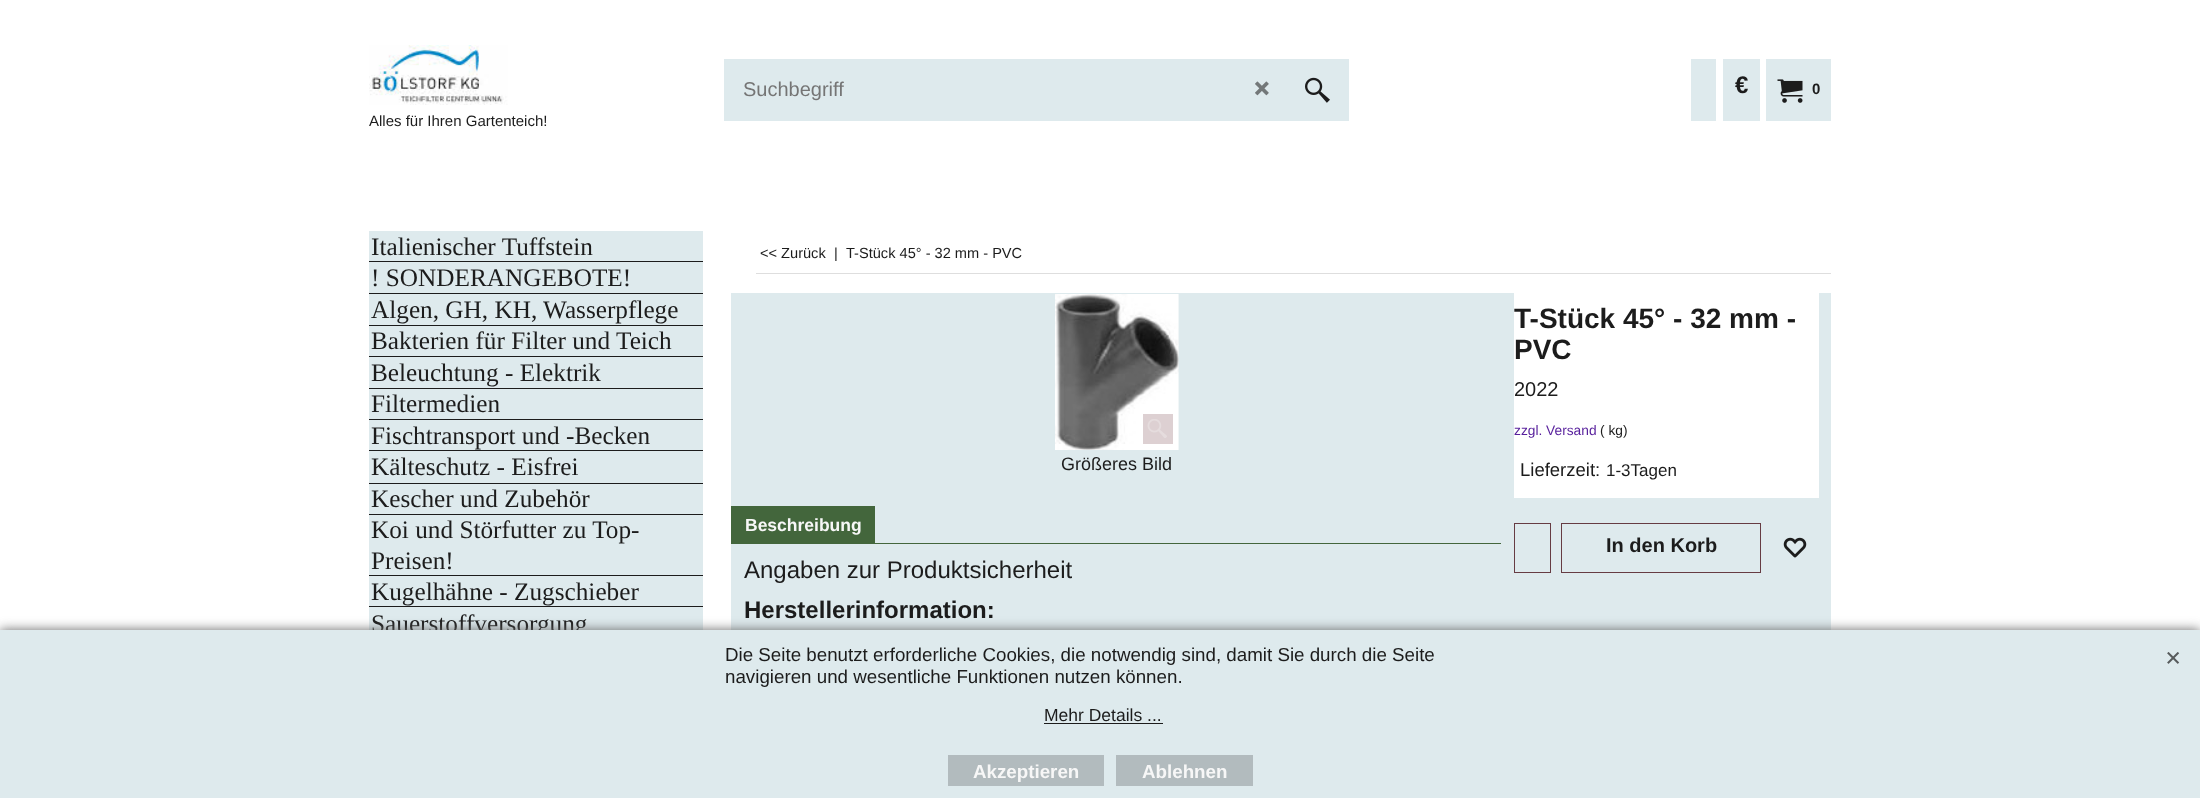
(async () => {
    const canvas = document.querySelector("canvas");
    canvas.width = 2200;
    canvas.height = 798;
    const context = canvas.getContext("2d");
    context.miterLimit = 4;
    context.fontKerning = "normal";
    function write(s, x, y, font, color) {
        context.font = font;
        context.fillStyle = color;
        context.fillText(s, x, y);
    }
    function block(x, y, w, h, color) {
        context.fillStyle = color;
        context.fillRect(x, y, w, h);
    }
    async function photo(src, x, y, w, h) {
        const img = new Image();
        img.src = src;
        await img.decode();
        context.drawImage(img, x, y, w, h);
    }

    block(0, 0, 2200, 798, "rgb(255, 255, 255)");
    block(724, 59, 625, 62, "rgb(222, 234, 237)");
    write("Suchbegriff", 743, 96, "20px Liberation Sans", "rgb(117, 117, 117)");
    await photo("media/1.png", 1255, 81, 14, 15);
    await photo("media/2.png", 1305, 77, 25, 26);
    block(1691, 59, 25, 62, "rgb(222, 234, 237)");
    block(1723, 59, 37, 62, "rgb(222, 234, 237)");
    write("€", 1735, 93, "bold 24px Liberation Sans", "rgb(28, 28, 28)");
    block(1766, 59, 65, 62, "rgb(222, 234, 237)");
    await photo("media/3.png", 1777, 79, 26, 24);
    write("0", 1812, 94, "bold 15px Liberation Sans", "rgb(28, 28, 28)");
    await photo("media/4.png", 369, 45, 139, 60);
    write("Alles für Ihren Gartenteich!", 369, 126, "15px Liberation Sans", "rgb(28, 28, 28)");
    block(369, 231, 334, 399, "rgb(222, 234, 237)");
    block(369, 261, 334, 1, "rgb(28, 28, 28)");
    write("Italienischer Tuffstein", 371, 255, "25.25px Liberation Serif", "rgb(28, 28, 28)");
    block(369, 293, 334, 1, "rgb(28, 28, 28)");
    write("! SONDERANGEBOTE!", 371, 286, "25.25px Liberation Serif", "rgb(28, 28, 28)");
    block(369, 325, 334, 1, "rgb(28, 28, 28)");
    write("Algen, GH, KH, Wasserpflege", 371, 318, "25.25px Liberation Serif", "rgb(28, 28, 28)");
    block(369, 356, 334, 1, "rgb(28, 28, 28)");
    write("Bakterien für Filter und Teich", 371, 349, "25.25px Liberation Serif", "rgb(28, 28, 28)");
    block(369, 388, 334, 1, "rgb(28, 28, 28)");
    write("Beleuchtung - Elektrik", 371, 381, "25.25px Liberation Serif", "rgb(28, 28, 28)");
    block(369, 419, 334, 1, "rgb(28, 28, 28)");
    write("Filtermedien", 371, 412, "25.25px Liberation Serif", "rgb(28, 28, 28)");
    block(369, 450, 334, 1, "rgb(28, 28, 28)");
    write("Fischtransport und -Becken", 371, 444, "25.25px Liberation Serif", "rgb(28, 28, 28)");
    block(369, 483, 334, 1, "rgb(28, 28, 28)");
    write("Kälteschutz - Eisfrei", 371, 475, "25.25px Liberation Serif", "rgb(28, 28, 28)");
    block(369, 514, 334, 1, "rgb(28, 28, 28)");
    write("Kescher und Zubehör", 371, 507, "25.25px Liberation Serif", "rgb(28, 28, 28)");
    block(369, 575, 334, 1, "rgb(28, 28, 28)");
    write("Koi und Störfutter zu Top-", 371, 538, "25.25px Liberation Serif", "rgb(28, 28, 28)");
    write("Preisen!", 371, 569, "25.25px Liberation Serif", "rgb(28, 28, 28)");
    block(369, 606, 334, 1, "rgb(28, 28, 28)");
    write("Kugelhähne - Zugschieber", 371, 600, "25.25px Liberation Serif", "rgb(28, 28, 28)");
    write("Sauerstoffversorgung", 371, 632, "25.25px Liberation Serif", "rgb(28, 28, 28)");
    block(756, 273, 1075, 1, "rgb(222, 222, 222)");
    write("<< Zurück", 760, 258, "14.6px Liberation Sans", "rgb(28, 28, 28)");
    write("|", 834, 258, "14.6px Liberation Sans", "rgb(28, 28, 28)");
    write("T-Stück 45° - 32 mm - PVC", 846, 258, "14.6px Liberation Sans", "rgb(28, 28, 28)");
    block(731, 293, 1100, 337, "rgb(222, 234, 237)");
    await photo("media/5.png", 1055, 294, 124, 156);
    block(1143, 414, 30, 30, "rgb(221, 208, 210)");
    await photo("media/6.png", 1147, 419, 20, 19);
    write("Größeres Bild", 1061, 470, "18px Liberation Sans", "rgb(28, 28, 28)");
    block(1514, 293, 305, 205, "rgb(255, 255, 255)");
    write("T-Stück 45° - 32 mm -", 1514, 328, "bold 28px Liberation Sans", "rgb(28, 28, 28)");
    write("PVC", 1514, 359, "bold 28px Liberation Sans", "rgb(28, 28, 28)");
    write("2022", 1514, 396, "20px Liberation Sans", "rgb(28, 28, 28)");
    write("zzgl. Versand", 1514, 435, "13.75px Liberation Sans", "rgb(87, 31, 156)");
    write("( kg)", 1600, 435, "13.75px Liberation Sans", "rgb(28, 28, 28)");
    write("Lieferzeit:", 1520, 476, "18.5px Liberation Sans", "rgb(28, 28, 28)");
    write("1-3Tagen", 1606, 476, "17px Liberation Sans", "rgb(28, 28, 28)");
    context.strokeStyle = "rgb(102, 60, 67)";
    context.strokeRect(1514.5, 523.5, 36, 49);
    context.strokeRect(1561.5, 523.5, 199, 49);
    write("In den Korb", 1606, 552, "bold 20px Liberation Sans", "rgb(28, 28, 28)");
    await photo("media/7.png", 1783, 537, 24, 21);
    block(731, 506, 144, 38, "rgb(67, 102, 60)");
    write("Beschreibung", 745, 531, "bold 17.5px Liberation Sans", "rgb(247, 247, 247)");
    block(875, 543, 626, 1, "rgb(67, 102, 60)");
    write("Angaben zur Produktsicherheit", 744, 578, "24px Liberation Sans", "rgb(28, 28, 28)");
    write("Herstellerinformation:", 744, 618, "bold 24px Liberation Sans", "rgb(28, 28, 28)");
    context.fillStyle = "rgb(102, 102, 102)";
    context.filter = "blur(6px)";
    context.beginPath();
    context.rect(0, 630, 2200, 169);
    context.fill();
    context.filter = "none";
    block(0, 630, 2200, 168, "rgb(222, 234, 237)");
    write("Die Seite benutzt erforderliche Cookies, die notwendig sind, damit Sie durch die Seite", 725, 661, "18.75px Liberation Sans", "rgb(28, 28, 28)");
    write("navigieren und wesentliche Funktionen nutzen können.", 725, 683, "18.75px Liberation Sans", "rgb(28, 28, 28)");
    write("Mehr Details ...", 1044, 721, "17.5px Liberation Sans", "rgb(28, 28, 28)");
    block(1044, 723, 119, 1, "rgb(28, 28, 28)");
    await photo("media/8.png", 2167, 652, 13, 12);
    block(948, 755, 156, 31, "rgb(178, 187, 190)");
    write("Akzeptieren", 973, 778, "bold 18.75px Liberation Sans", "rgb(247, 247, 247)");
    block(1116, 755, 137, 31, "rgb(178, 187, 190)");
    write("Ablehnen", 1142, 778, "bold 18.75px Liberation Sans", "rgb(247, 247, 247)");
})();
